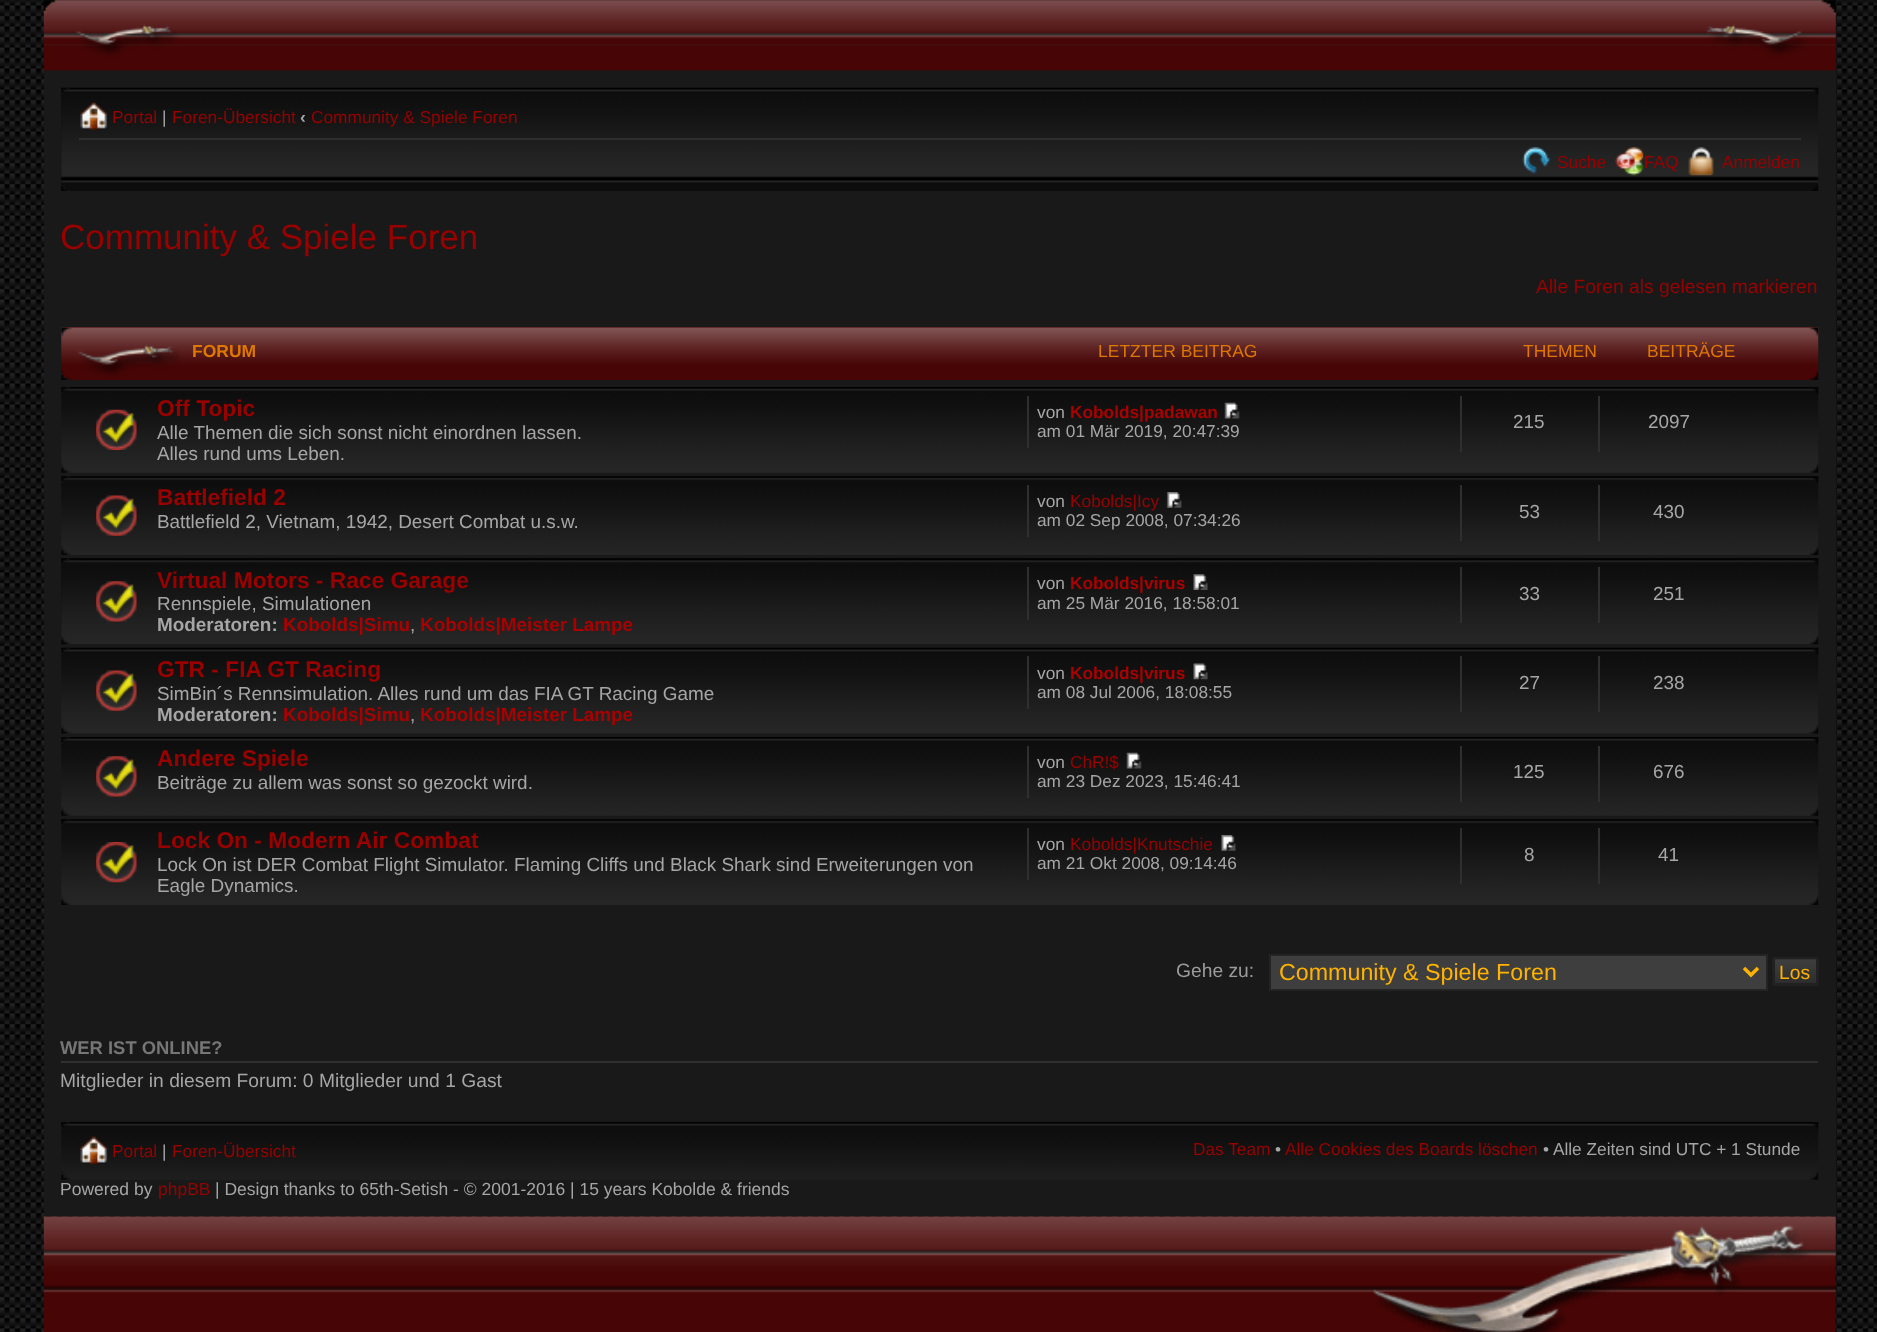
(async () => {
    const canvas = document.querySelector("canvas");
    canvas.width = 1877;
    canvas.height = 1332;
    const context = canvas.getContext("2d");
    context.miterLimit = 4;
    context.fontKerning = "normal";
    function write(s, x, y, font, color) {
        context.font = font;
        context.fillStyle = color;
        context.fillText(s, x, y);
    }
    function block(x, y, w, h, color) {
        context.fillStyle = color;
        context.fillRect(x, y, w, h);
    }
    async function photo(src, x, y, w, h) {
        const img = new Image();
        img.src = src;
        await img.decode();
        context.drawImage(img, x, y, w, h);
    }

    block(0, 0, 1877, 1332, "rgb(255, 255, 255)");
    await photo("media/1.png", 0, 0, 1877, 1332);
    block(44, 0, 1792, 1216, "rgb(26, 25, 25)");
    await photo("media/2.png", 43, 0, 1793, 71);
    block(61, 88, 1757, 103, "rgb(13, 13, 13)");
    await photo("media/3.png", 61, 87, 1758, 96);
    await photo("media/4.png", 61, 88, 9, 6);
    await photo("media/5.png", 1812, 88, 7, 7);
    block(79, 138, 1722, 2, "rgb(47, 47, 47)");
    await photo("media/6.png", 79, 101, 30, 29);
    write("Portal", 112, 123, "17.3px Liberation Sans", "rgb(153, 0, 0)");
    write("|", 162, 123, "17.3px Liberation Sans", "rgb(166, 166, 166)");
    write("Foren-Übersicht", 172, 123, "17.3px Liberation Sans", "rgb(153, 0, 0)");
    write("‹", 300, 123, "bold 17.3px Liberation Sans", "rgb(166, 166, 166)");
    write("Community & Spiele Foren", 311, 123, "17.3px Liberation Sans", "rgb(153, 0, 0)");
    await photo("media/7.png", 1522, 147, 29, 27);
    write("Suche", 1557, 168, "17.3px Liberation Sans", "rgb(153, 0, 0)");
    await photo("media/8.png", 1615, 147, 29, 29);
    write("FAQ", 1644, 168, "17.3px Liberation Sans", "rgb(153, 0, 0)");
    await photo("media/9.png", 1688, 147, 26, 29);
    write("Anmelden", 1722, 168, "17.3px Liberation Sans", "rgb(153, 0, 0)");
    await photo("media/10.png", 61, 187, 8, 4);
    await photo("media/11.png", 1812, 184, 7, 7);
    write("Community & Spiele Foren", 60, 249, "35px Liberation Sans", "rgb(153, 0, 0)");
    write("Alle Foren als gelesen markieren", 1536, 293, "19.25px Liberation Sans", "rgb(153, 0, 0)");
    block(61, 327, 1757, 53, "rgb(71, 5, 5)");
    await photo("media/12.png", 61, 327, 1758, 53);
    await photo("media/13.png", 61, 327, 11, 10);
    await photo("media/14.png", 1809, 327, 10, 10);
    context.save();
    context.beginPath();
    context.rect(193, 336, 1617, 35);
    context.clip();
    write("FORUM", 192, 357, "bold 17.5px Liberation Sans", "rgb(223, 120, 0)");
    context.restore();
    write("LETZTER BEITRAG", 1098, 357, "17.5px Liberation Sans", "rgb(223, 120, 0)");
    write("THEMEN", 1523, 357, "17.5px Liberation Sans", "rgb(223, 120, 0)");
    write("BEITRÄGE", 1647, 357, "17.5px Liberation Sans", "rgb(223, 120, 0)");
    await photo("media/15.png", 61, 371, 11, 9);
    await photo("media/16.png", 1809, 371, 10, 9);
    await photo("media/17.png", 61, 387, 1758, 86);
    await photo("media/18.png", 61, 387, 9, 7);
    await photo("media/19.png", 1812, 387, 7, 7);
    await photo("media/20.png", 96, 409, 41, 41);
    write("Off Topic", 157, 416, "bold 22.75px Liberation Sans", "rgb(153, 0, 0)");
    write("Alle Themen die sich sonst nicht einordnen lassen.", 157, 439, "18.9px Liberation Sans", "rgb(166, 166, 166)");
    write("Alles rund ums Leben.", 157, 460, "18.9px Liberation Sans", "rgb(166, 166, 166)");
    block(1027, 396, 2, 52, "rgb(47, 47, 47)");
    write("von", 1037, 418, "17.3px Liberation Sans", "rgb(166, 166, 166)");
    write("Kobolds|padawan", 1070, 418, "bold 17.3px Liberation Sans", "rgb(170, 0, 0)");
    await photo("media/21.png", 1224, 402, 16, 17);
    write("am 01 Mär 2019, 20:47:39", 1037, 437, "17.3px Liberation Sans", "rgb(166, 166, 166)");
    block(1460, 396, 2, 56, "rgb(47, 47, 47)");
    write("215", 1513, 428, "18.9px Liberation Sans", "rgb(166, 166, 166)");
    block(1598, 396, 2, 56, "rgb(47, 47, 47)");
    write("2097", 1648, 428, "18.9px Liberation Sans", "rgb(166, 166, 166)");
    await photo("media/22.png", 61, 464, 10, 9);
    await photo("media/23.png", 1810, 464, 9, 9);
    await photo("media/24.png", 61, 476, 1758, 79);
    await photo("media/25.png", 61, 476, 9, 7);
    await photo("media/26.png", 1812, 477, 7, 6);
    await photo("media/27.png", 96, 495, 41, 41);
    write("Battlefield 2", 157, 505, "bold 22.75px Liberation Sans", "rgb(153, 0, 0)");
    write("Battlefield 2, Vietnam, 1942, Desert Combat u.s.w.", 157, 528, "18.9px Liberation Sans", "rgb(166, 166, 166)");
    block(1027, 485, 2, 52, "rgb(47, 47, 47)");
    write("von", 1037, 507, "17.3px Liberation Sans", "rgb(166, 166, 166)");
    write("Kobolds|Icy", 1070, 507, "17.3px Liberation Sans", "rgb(153, 0, 0)");
    await photo("media/28.png", 1166, 492, 16, 16);
    write("am 02 Sep 2008, 07:34:26", 1037, 526, "17.3px Liberation Sans", "rgb(166, 166, 166)");
    block(1460, 485, 2, 56, "rgb(47, 47, 47)");
    write("53", 1519, 518, "18.9px Liberation Sans", "rgb(166, 166, 166)");
    block(1598, 485, 2, 56, "rgb(47, 47, 47)");
    write("430", 1653, 518, "18.9px Liberation Sans", "rgb(166, 166, 166)");
    await photo("media/29.png", 61, 546, 10, 9);
    await photo("media/30.png", 1809, 546, 10, 9);
    block(61, 558, 1757, 86, "rgb(13, 13, 13)");
    await photo("media/31.png", 61, 558, 1758, 86);
    await photo("media/32.png", 61, 558, 9, 7);
    await photo("media/33.png", 1811, 559, 8, 6);
    await photo("media/34.png", 96, 581, 41, 41);
    write("Virtual Motors - Race Garage", 157, 588, "bold 22.75px Liberation Sans", "rgb(153, 0, 0)");
    write("Rennspiele, Simulationen", 157, 610, "18.9px Liberation Sans", "rgb(166, 166, 166)");
    write("Moderatoren:", 157, 631, "bold 18.9px Liberation Sans", "rgb(166, 166, 166)");
    context.save();
    context.beginPath();
    context.rect(79, 567, 1722, 68);
    context.clip();
    write("Kobolds|Simu", 283, 631, "bold 18.9px Liberation Sans", "rgb(170, 0, 0)");
    context.restore();
    write(",", 410, 631, "18.9px Liberation Sans", "rgb(166, 166, 166)");
    context.save();
    context.beginPath();
    context.rect(79, 567, 1722, 68);
    context.clip();
    write("Kobolds|Meister Lampe", 420, 631, "bold 18.9px Liberation Sans", "rgb(170, 0, 0)");
    context.restore();
    block(1027, 567, 2, 53, "rgb(47, 47, 47)");
    write("von", 1037, 589, "17.3px Liberation Sans", "rgb(166, 166, 166)");
    write("Kobolds|virus", 1070, 589, "bold 17.3px Liberation Sans", "rgb(170, 0, 0)");
    await photo("media/35.png", 1193, 574, 15, 16);
    write("am 25 Mär 2016, 18:58:01", 1037, 609, "17.3px Liberation Sans", "rgb(166, 166, 166)");
    block(1460, 567, 2, 56, "rgb(47, 47, 47)");
    write("33", 1519, 600, "18.9px Liberation Sans", "rgb(166, 166, 166)");
    block(1598, 567, 2, 56, "rgb(47, 47, 47)");
    write("251", 1653, 600, "18.9px Liberation Sans", "rgb(166, 166, 166)");
    await photo("media/36.png", 61, 636, 10, 9);
    await photo("media/37.png", 1809, 635, 10, 10);
    await photo("media/38.png", 61, 647, 1758, 87);
    await photo("media/4.png", 61, 648, 9, 6);
    await photo("media/5.png", 1812, 648, 7, 7);
    await photo("media/39.png", 96, 670, 41, 41);
    write("GTR - FIA GT Racing", 157, 677, "bold 22.75px Liberation Sans", "rgb(153, 0, 0)");
    write("SimBin´s Rennsimulation. Alles rund um das FIA GT Racing Game", 157, 700, "18.9px Liberation Sans", "rgb(166, 166, 166)");
    write("Moderatoren:", 157, 721, "bold 18.9px Liberation Sans", "rgb(166, 166, 166)");
    context.save();
    context.beginPath();
    context.rect(79, 656, 1722, 69);
    context.clip();
    write("Kobolds|Simu", 283, 721, "bold 18.9px Liberation Sans", "rgb(170, 0, 0)");
    context.restore();
    write(",", 410, 721, "18.9px Liberation Sans", "rgb(166, 166, 166)");
    context.save();
    context.beginPath();
    context.rect(79, 656, 1722, 69);
    context.clip();
    write("Kobolds|Meister Lampe", 420, 721, "bold 18.9px Liberation Sans", "rgb(170, 0, 0)");
    context.restore();
    block(1027, 656, 2, 53, "rgb(47, 47, 47)");
    write("von", 1037, 679, "17.3px Liberation Sans", "rgb(166, 166, 166)");
    write("Kobolds|virus", 1070, 679, "bold 17.3px Liberation Sans", "rgb(170, 0, 0)");
    await photo("media/40.png", 1193, 663, 15, 17);
    write("am 08 Jul 2006, 18:08:55", 1037, 698, "17.3px Liberation Sans", "rgb(166, 166, 166)");
    block(1460, 656, 2, 56, "rgb(47, 47, 47)");
    write("27", 1519, 689, "18.9px Liberation Sans", "rgb(166, 166, 166)");
    block(1598, 656, 2, 56, "rgb(47, 47, 47)");
    write("238", 1653, 689, "18.9px Liberation Sans", "rgb(166, 166, 166)");
    await photo("media/41.png", 61, 725, 11, 9);
    await photo("media/42.png", 1809, 725, 10, 9);
    await photo("media/43.png", 61, 737, 1758, 79);
    await photo("media/18.png", 61, 737, 9, 7);
    await photo("media/19.png", 1812, 737, 7, 7);
    await photo("media/44.png", 96, 756, 41, 41);
    write("Andere Spiele", 157, 766, "bold 22.75px Liberation Sans", "rgb(153, 0, 0)");
    write("Beiträge zu allem was sonst so gezockt wird.", 157, 789, "18.9px Liberation Sans", "rgb(166, 166, 166)");
    block(1027, 746, 2, 52, "rgb(47, 47, 47)");
    write("von", 1037, 768, "17.3px Liberation Sans", "rgb(166, 166, 166)");
    write("ChR!$", 1070, 768, "17.3px Liberation Sans", "rgb(153, 0, 0)");
    await photo("media/45.png", 1126, 752, 16, 17);
    write("am 23 Dez 2023, 15:46:41", 1037, 787, "17.3px Liberation Sans", "rgb(166, 166, 166)");
    block(1460, 746, 2, 56, "rgb(47, 47, 47)");
    write("125", 1513, 778, "18.9px Liberation Sans", "rgb(166, 166, 166)");
    block(1598, 746, 2, 56, "rgb(47, 47, 47)");
    write("676", 1653, 778, "18.9px Liberation Sans", "rgb(166, 166, 166)");
    await photo("media/46.png", 61, 807, 10, 9);
    await photo("media/47.png", 1810, 807, 9, 9);
    await photo("media/48.png", 61, 819, 1758, 86);
    await photo("media/25.png", 61, 819, 9, 7);
    await photo("media/26.png", 1812, 820, 7, 6);
    await photo("media/49.png", 96, 842, 41, 41);
    write("Lock On - Modern Air Combat", 157, 848, "bold 22.75px Liberation Sans", "rgb(153, 0, 0)");
    write("Lock On ist DER Combat Flight Simulator. Flaming Cliffs und Black Shark sind Erweiterungen von", 157, 871, "18.9px Liberation Sans", "rgb(166, 166, 166)");
    write("Eagle Dynamics.", 157, 892, "18.9px Liberation Sans", "rgb(166, 166, 166)");
    block(1027, 828, 2, 52, "rgb(47, 47, 47)");
    write("von", 1037, 850, "17.3px Liberation Sans", "rgb(166, 166, 166)");
    write("Kobolds|Knutschie", 1070, 850, "17.3px Liberation Sans", "rgb(153, 0, 0)");
    await photo("media/50.png", 1221, 835, 15, 16);
    write("am 21 Okt 2008, 09:14:46", 1037, 869, "17.3px Liberation Sans", "rgb(166, 166, 166)");
    block(1460, 828, 2, 56, "rgb(47, 47, 47)");
    write("8", 1524, 861, "18.9px Liberation Sans", "rgb(166, 166, 166)");
    block(1598, 828, 2, 56, "rgb(47, 47, 47)");
    write("41", 1658, 861, "18.9px Liberation Sans", "rgb(166, 166, 166)");
    await photo("media/51.png", 61, 896, 10, 9);
    await photo("media/52.png", 1809, 896, 10, 9);
    write("Gehe zu:", 1176, 977, "19.25px Liberation Sans", "rgb(155, 155, 155)");
    context.fillStyle = "rgb(62, 62, 62)";
    context.beginPath();
    context.rect(1270, 955, 497, 35);
    context.fill();
    context.strokeStyle = "rgb(36, 36, 36)";
    context.lineWidth = 2;
    context.stroke();
    context.beginPath();
    context.moveTo(1744, 968);
    context.lineTo(1751, 975);
    context.lineTo(1758, 968);
    context.strokeStyle = "rgb(255, 179, 0)";
    context.lineWidth = 3.5;
    context.stroke();
    write("Community & Spiele Foren", 1279, 980, "23.25px Liberation Sans", "rgb(255, 179, 0)");
    await photo("media/53.png", 1772, 959, 47, 27);
    context.strokeStyle = "rgb(33, 33, 33)";
    context.lineWidth = 2;
    context.strokeRect(1774, 958, 43, 26);
    write("Los", 1779, 979, "19.25px Liberation Sans", "rgb(255, 179, 0)");
    block(61, 1061, 1757, 2, "rgb(47, 47, 47)");
    write("WER IST ONLINE?", 60, 1054, "bold 18.4px Liberation Sans", "rgb(118, 118, 118)");
    write("Mitglieder in diesem Forum: 0 Mitglieder und 1 Gast", 60, 1087, "19.25px Liberation Sans", "rgb(166, 166, 166)");
    await photo("media/54.png", 61, 1122, 1758, 58);
    await photo("media/18.png", 61, 1122, 9, 7);
    await photo("media/19.png", 1812, 1122, 7, 7);
    await photo("media/55.png", 79, 1136, 30, 28);
    write("Portal", 112, 1157, "17.3px Liberation Sans", "rgb(153, 0, 0)");
    write("|", 162, 1157, "17.3px Liberation Sans", "rgb(166, 166, 166)");
    write("Foren-Übersicht", 172, 1157, "17.3px Liberation Sans", "rgb(153, 0, 0)");
    write("Das Team", 1193, 1155, "17.3px Liberation Sans", "rgb(153, 0, 0)");
    write("•", 1275, 1155, "17.3px Liberation Sans", "rgb(166, 166, 166)");
    write("Alle Cookies des Boards löschen", 1285, 1155, "17.3px Liberation Sans", "rgb(153, 0, 0)");
    write("• Alle Zeiten sind UTC + 1 Stunde", 1543, 1155, "17.3px Liberation Sans", "rgb(166, 166, 166)");
    await photo("media/56.png", 61, 1171, 10, 9);
    await photo("media/57.png", 1810, 1171, 9, 9);
    write("Powered by", 60, 1195, "17.5px Liberation Sans", "rgb(166, 166, 166)");
    write("phpBB", 158, 1195, "17.5px Liberation Sans", "rgb(153, 0, 0)");
    write("| Design thanks to 65th-Setish - © 2001-2016 | 15 years Kobolde & friends", 215, 1195, "17.5px Liberation Sans", "rgb(166, 166, 166)");
    await photo("media/58.png", 43, 1216, 1793, 116);
})();
